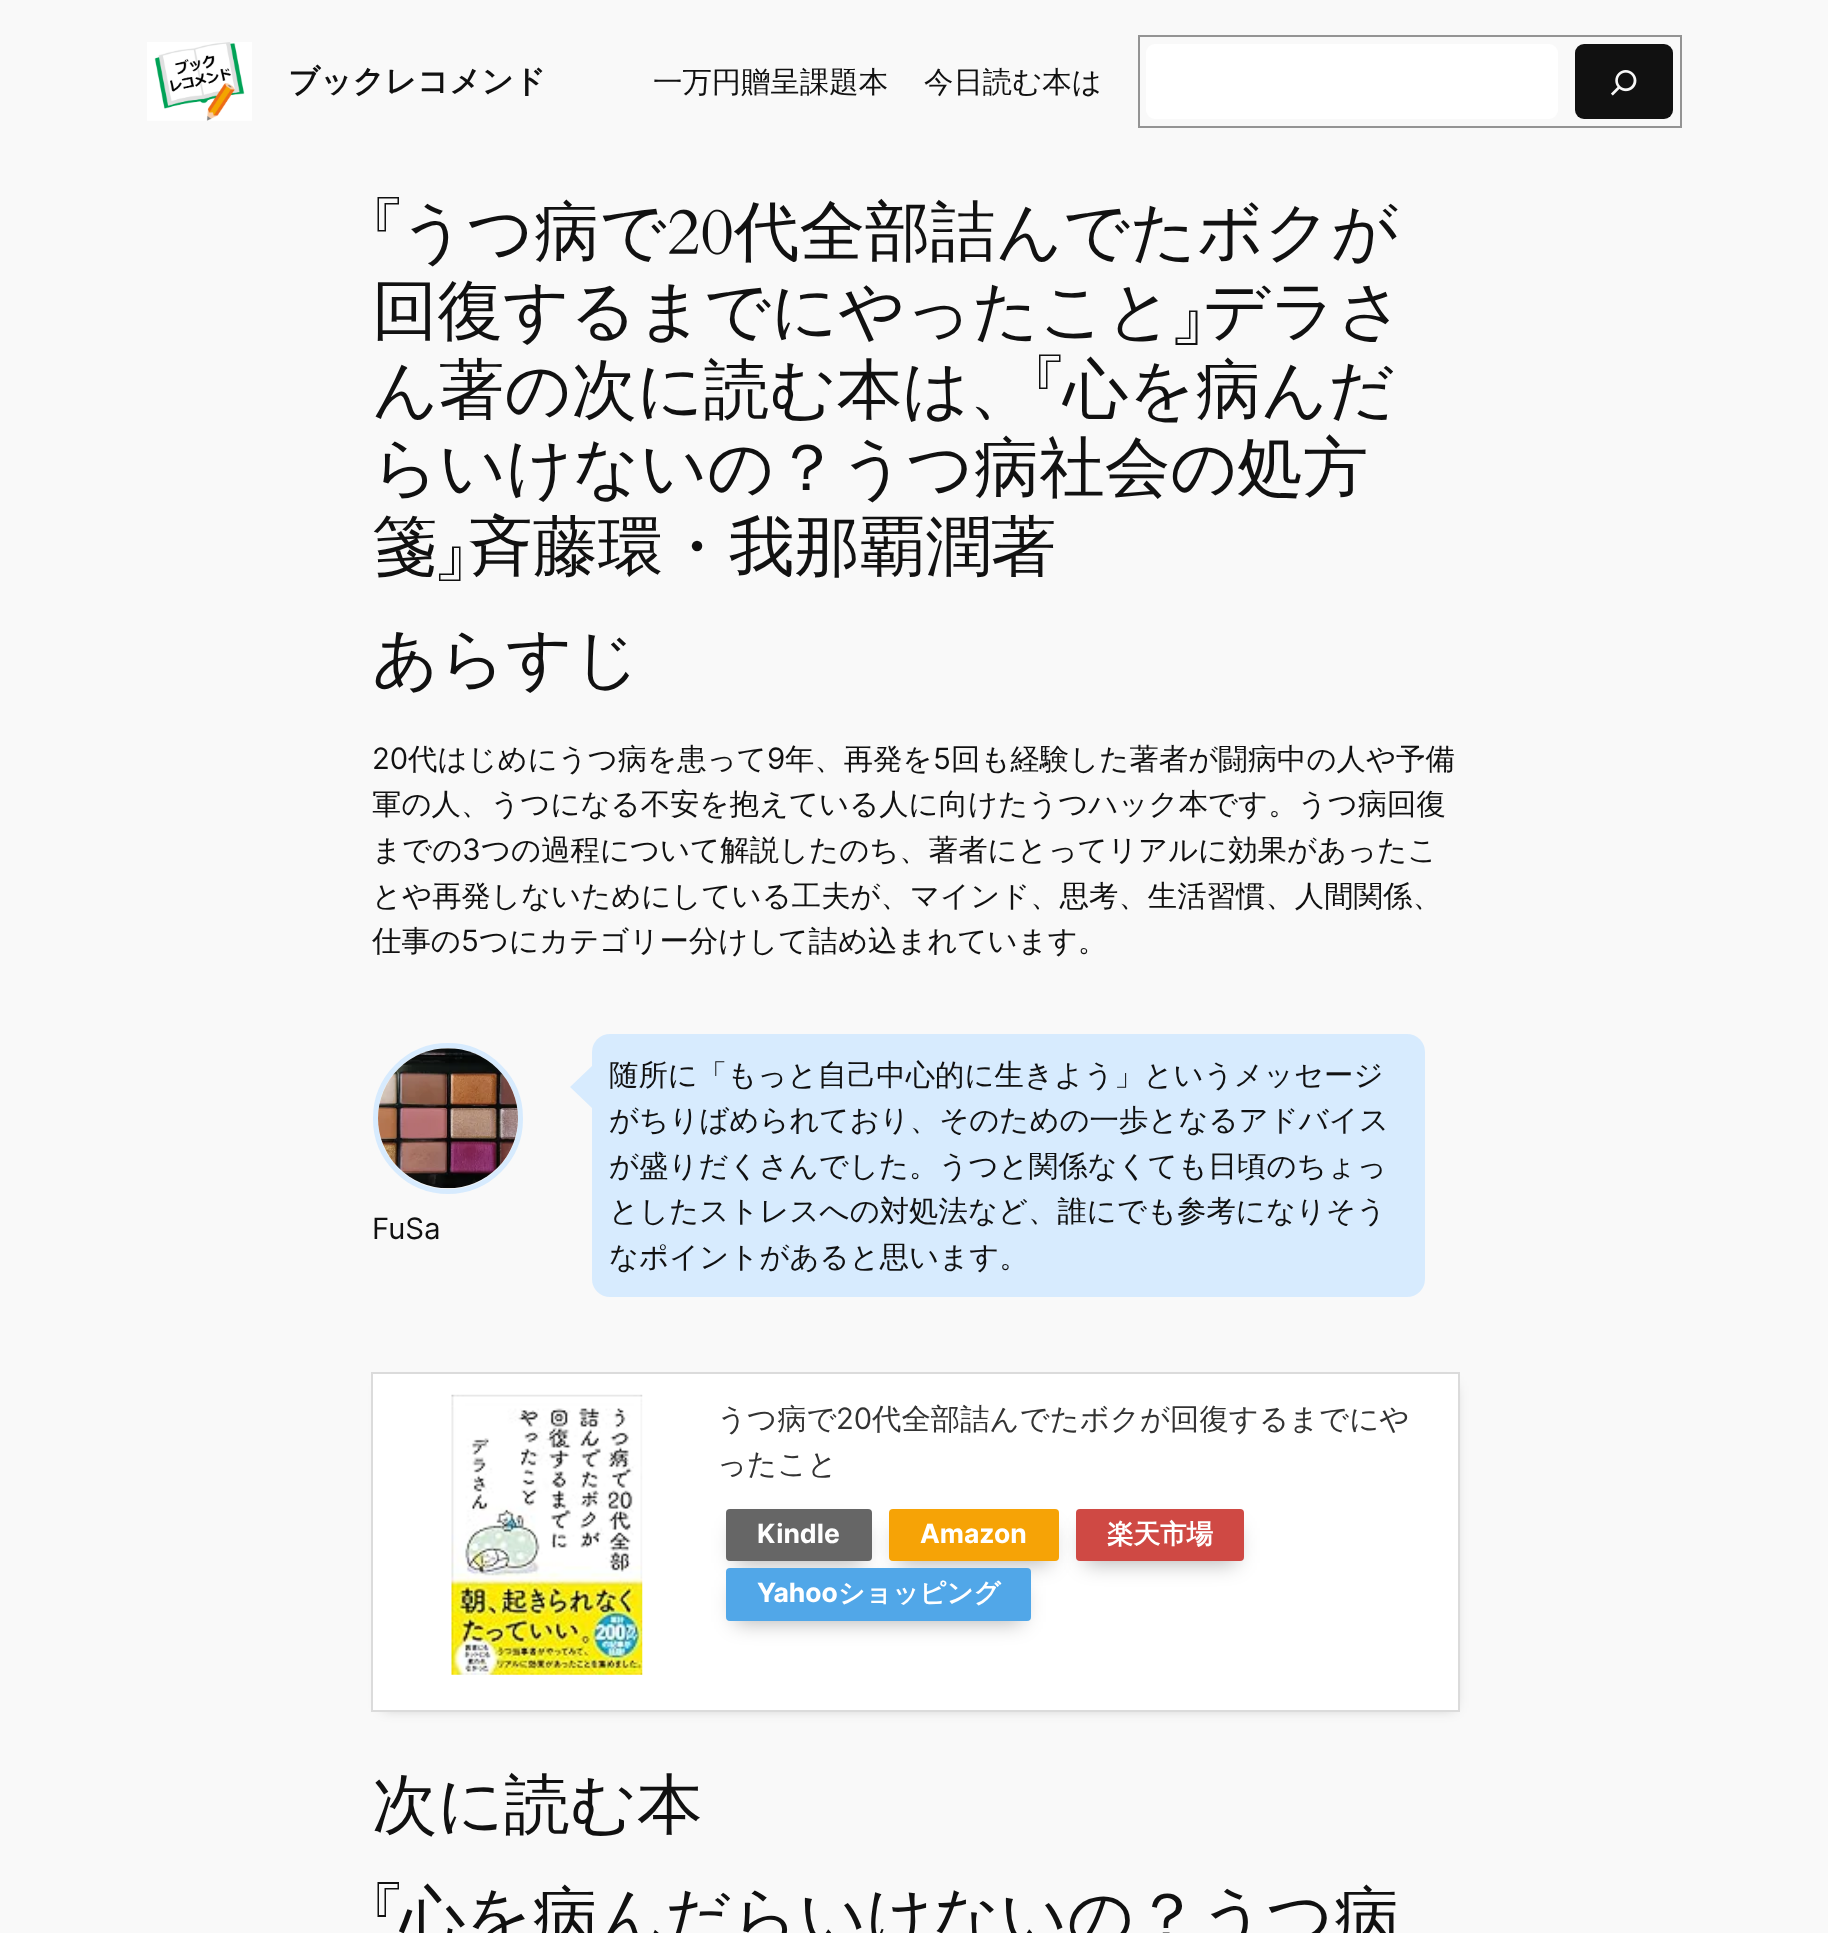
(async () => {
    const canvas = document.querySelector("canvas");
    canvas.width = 1828;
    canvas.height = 1933;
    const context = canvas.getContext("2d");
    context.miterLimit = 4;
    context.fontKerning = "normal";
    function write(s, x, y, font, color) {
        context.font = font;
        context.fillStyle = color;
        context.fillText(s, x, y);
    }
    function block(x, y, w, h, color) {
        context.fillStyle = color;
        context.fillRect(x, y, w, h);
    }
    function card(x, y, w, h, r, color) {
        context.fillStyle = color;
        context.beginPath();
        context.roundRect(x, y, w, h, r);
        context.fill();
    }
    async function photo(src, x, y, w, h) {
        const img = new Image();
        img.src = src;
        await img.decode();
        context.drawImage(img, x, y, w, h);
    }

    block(0, 0, 1828, 1933, "rgb(249, 249, 249)");
    await photo("media/1.png", 147, 42, 105, 79);
    write("ブックレコメンド", 288, 92, "bold 31.5px WenQuanYi Zen Hei", "rgb(17, 17, 17)");
    write("一万円贈呈課題本", 653, 92, "500 29.4px WenQuanYi Zen Hei", "rgb(17, 17, 17)");
    write("今日読む本は", 924, 92, "500 29.4px WenQuanYi Zen Hei", "rgb(17, 17, 17)");
    context.strokeStyle = "rgb(148, 148, 148)";
    context.lineWidth = 2;
    context.strokeRect(1139, 36, 542, 91);
    card(1146, 44, 412, 75, 9, "rgb(255, 255, 255)");
    card(1575, 44, 98, 75, 9, "rgb(17, 17, 17)");
    await photo("media/2.png", 1611, 70, 26, 26);
    write("うつ病で", 400, 254, "500 65.5px WenQuanYi Zen Hei", "rgb(17, 17, 17)");
    context.beginPath();
    context.moveTo(386, 204.5);
    context.lineTo(386, 231.5);
    context.lineTo(377.5, 231.5);
    context.lineTo(377.5, 197);
    context.lineTo(399, 197);
    context.lineTo(399, 204.5);
    context.closePath();
    context.moveTo(397.5, 198.5);
    context.lineTo(379, 198.5);
    context.lineTo(379, 230);
    context.lineTo(384.5, 230);
    context.lineTo(384.5, 203);
    context.lineTo(397.5, 203);
    context.closePath();
    context.fill();
    await photo("media/3.png", 669, 209, 63, 46);
    write("代全部詰んでたボクが", 734, 254, "500 65.5px WenQuanYi Zen Hei", "rgb(17, 17, 17)");
    write("回復するまでにやったこと", 372, 333, "500 65.5px WenQuanYi Zen Hei", "rgb(17, 17, 17)");
    write("デラさ", 1203, 333, "500 65.5px WenQuanYi Zen Hei", "rgb(17, 17, 17)");
    context.beginPath();
    context.moveTo(1189, 337.5);
    context.lineTo(1189, 310.5);
    context.lineTo(1197.5, 310.5);
    context.lineTo(1197.5, 345);
    context.lineTo(1175.5, 345);
    context.lineTo(1175.5, 337.5);
    context.closePath();
    context.moveTo(1177.5, 343);
    context.lineTo(1195.5, 343);
    context.lineTo(1195.5, 312);
    context.lineTo(1190.5, 312);
    context.lineTo(1190.5, 339);
    context.lineTo(1177.5, 339);
    context.closePath();
    context.fill();
    write("ん著の次に読む本は、", 372, 412, "500 65.5px WenQuanYi Zen Hei", "rgb(17, 17, 17)");
    write("心を病んだ", 1063, 412, "500 65.5px WenQuanYi Zen Hei", "rgb(17, 17, 17)");
    context.beginPath();
    context.moveTo(1047.5, 362);
    context.lineTo(1047.5, 389);
    context.lineTo(1039, 389);
    context.lineTo(1039, 354.5);
    context.lineTo(1060.5, 354.5);
    context.lineTo(1060.5, 362);
    context.closePath();
    context.moveTo(1059, 356);
    context.lineTo(1040.5, 356);
    context.lineTo(1040.5, 387.5);
    context.lineTo(1046, 387.5);
    context.lineTo(1046, 360.5);
    context.lineTo(1059, 360.5);
    context.closePath();
    context.fill();
    write("らいけないの？うつ病社会の処方", 372, 490, "500 65.5px WenQuanYi Zen Hei", "rgb(17, 17, 17)");
    write("箋", 372, 569, "500 65.5px WenQuanYi Zen Hei", "rgb(17, 17, 17)");
    context.beginPath();
    context.moveTo(452, 573.5);
    context.lineTo(452, 546.5);
    context.lineTo(460.5, 546.5);
    context.lineTo(460.5, 581);
    context.lineTo(439, 581);
    context.lineTo(439, 573.5);
    context.closePath();
    context.moveTo(440.5, 579.5);
    context.lineTo(459, 579.5);
    context.lineTo(459, 548);
    context.lineTo(454, 548);
    context.lineTo(454, 575);
    context.lineTo(440.5, 575);
    context.closePath();
    context.fill();
    write("斉藤環・我那覇潤著", 467, 569, "500 65.5px WenQuanYi Zen Hei", "rgb(17, 17, 17)");
    write("あらすじ", 372, 681, "500 65.5px WenQuanYi Zen Hei", "rgb(17, 17, 17)");
    write("20", 372, 769, "29.4px Inter", "rgb(17, 17, 17)");
    write("代はじめにうつ病を患って", 408, 769, "500 29.4px WenQuanYi Zen Hei", "rgb(17, 17, 17)");
    write("9", 767, 769, "29.4px Inter", "rgb(17, 17, 17)");
    write("年、再発を", 785, 769, "500 29.4px WenQuanYi Zen Hei", "rgb(17, 17, 17)");
    write("5", 933, 769, "29.4px Inter", "rgb(17, 17, 17)");
    write("回も経験した著者が闘病中の人や予備", 951, 769, "500 29.4px WenQuanYi Zen Hei", "rgb(17, 17, 17)");
    write("軍の人、うつになる不安を抱えている人に向けたうつハック本です。うつ病回復", 372, 814, "500 29.4px WenQuanYi Zen Hei", "rgb(17, 17, 17)");
    write("までの", 372, 860, "500 29.4px WenQuanYi Zen Hei", "rgb(17, 17, 17)");
    write("3", 462, 860, "29.4px Inter", "rgb(17, 17, 17)");
    write("つの過程について解説したのち、著者にとってリアルに効果があったこ", 481, 860, "500 29.4px WenQuanYi Zen Hei", "rgb(17, 17, 17)");
    write("とや再発しないためにしている工夫が、マインド、思考、生活習慣、人間関係、", 372, 906, "500 29.4px WenQuanYi Zen Hei", "rgb(17, 17, 17)");
    write("仕事の", 372, 951, "500 29.4px WenQuanYi Zen Hei", "rgb(17, 17, 17)");
    write("5", 461, 951, "29.4px Inter", "rgb(17, 17, 17)");
    write("つにカテゴリー分けして詰め込まれています。", 479, 951, "500 29.4px WenQuanYi Zen Hei", "rgb(17, 17, 17)");
    context.beginPath();
    context.roundRect(375.5, 1045.5, 145, 146, 72.5);
    context.strokeStyle = "rgb(215, 235, 254)";
    context.lineWidth = 5;
    context.stroke();
    await photo("media/4.png", 378, 1048, 140, 141);
    write("FuSa", 372, 1239, "29.4px Inter", "rgb(17, 17, 17)");
    card(592, 1034, 833, 263, 18, "rgb(215, 235, 254)");
    context.beginPath();
    context.moveTo(592, 1066);
    context.lineTo(592, 1108);
    context.lineTo(570, 1087);
    context.closePath();
    context.fill();
    write("随所に「もっと自己中心的に生きよう」というメッセージ", 609, 1085, "500 29.4px WenQuanYi Zen Hei", "rgb(17, 17, 17)");
    write("がちりばめられており、そのための一歩となるアドバイス", 609, 1130, "500 29.4px WenQuanYi Zen Hei", "rgb(17, 17, 17)");
    write("が盛りだくさんでした。うつと関係なくても日頃のちょっ", 609, 1176, "500 29.4px WenQuanYi Zen Hei", "rgb(17, 17, 17)");
    write("としたストレスへの対処法など、誰にでも参考になりそう", 609, 1221, "500 29.4px WenQuanYi Zen Hei", "rgb(17, 17, 17)");
    write("なポイントがあると思います。", 609, 1267, "500 29.4px WenQuanYi Zen Hei", "rgb(17, 17, 17)");
    context.fillStyle = "rgba(0, 0, 0, 0.25)";
    context.filter = "blur(7px)";
    context.beginPath();
    context.rect(383, 1386, 1071, 322);
    context.fill();
    context.filter = "none";
    context.fillStyle = "rgb(255, 255, 255)";
    context.beginPath();
    context.rect(372, 1373, 1087, 338);
    context.fill();
    context.strokeStyle = "rgb(219, 219, 219)";
    context.lineWidth = 2;
    context.stroke();
    await photo("media/5.png", 451, 1394, 192, 281);
    write("うつ病で", 717, 1429, "500 29.4px WenQuanYi Zen Hei", "rgb(51, 51, 51)");
    write("20", 836, 1429, "29.4px Inter", "rgb(51, 51, 51)");
    write("代全部詰んでたボクが回復するまでにや", 872, 1429, "500 29.4px WenQuanYi Zen Hei", "rgb(51, 51, 51)");
    write("ったこと", 717, 1474, "500 29.4px WenQuanYi Zen Hei", "rgb(51, 51, 51)");
    context.fillStyle = "rgba(0, 0, 0, 0.3)";
    context.filter = "blur(10.5px)";
    context.beginPath();
    context.rect(735, 1528, 128, 35);
    context.fill();
    context.filter = "none";
    card(726, 1509, 146, 52, 4, "rgb(102, 102, 102)");
    write("Kindle", 757, 1543, "bold 26.5px Inter", "rgb(255, 255, 255)");
    context.fillStyle = "rgba(0, 0, 0, 0.3)";
    context.filter = "blur(10.5px)";
    context.beginPath();
    context.rect(898, 1528, 152, 35);
    context.fill();
    context.filter = "none";
    card(889, 1509, 170, 52, 4, "rgb(246, 163, 6)");
    write("Amazon", 920, 1543, "bold 26.5px Inter", "rgb(255, 255, 255)");
    context.fillStyle = "rgba(0, 0, 0, 0.3)";
    context.filter = "blur(10.5px)";
    context.beginPath();
    context.rect(1085, 1528, 151, 35);
    context.fill();
    context.filter = "none";
    card(1076, 1509, 168, 52, 4, "rgb(207, 73, 68)");
    write("楽天市場", 1107, 1543, "bold 26.5px WenQuanYi Zen Hei", "rgb(255, 255, 255)");
    context.fillStyle = "rgba(0, 0, 0, 0.3)";
    context.filter = "blur(10.5px)";
    context.beginPath();
    context.rect(735, 1587, 287, 35);
    context.fill();
    context.filter = "none";
    card(726, 1568, 305, 53, 4, "rgb(81, 167, 232)");
    write("Yahoo", 757, 1602, "bold 26.5px Inter", "rgb(255, 255, 255)");
    write("ショッピング", 838, 1602, "bold 26.5px WenQuanYi Zen Hei", "rgb(255, 255, 255)");
    write("次に読む本", 372, 1827, "500 65.5px WenQuanYi Zen Hei", "rgb(17, 17, 17)");
    context.beginPath();
    context.moveTo(386, 1889.5);
    context.lineTo(386, 1917);
    context.lineTo(377.5, 1917);
    context.lineTo(377.5, 1882);
    context.lineTo(399, 1882);
    context.lineTo(399, 1889.5);
    context.closePath();
    context.moveTo(397.5, 1884);
    context.lineTo(379, 1884);
    context.lineTo(379, 1915);
    context.lineTo(384.5, 1915);
    context.lineTo(384.5, 1888);
    context.lineTo(397.5, 1888);
    context.closePath();
    context.fill();
    write("心を病んだらいけないの？うつ病", 400, 1939, "500 65.5px WenQuanYi Zen Hei", "rgb(17, 17, 17)");
})();
